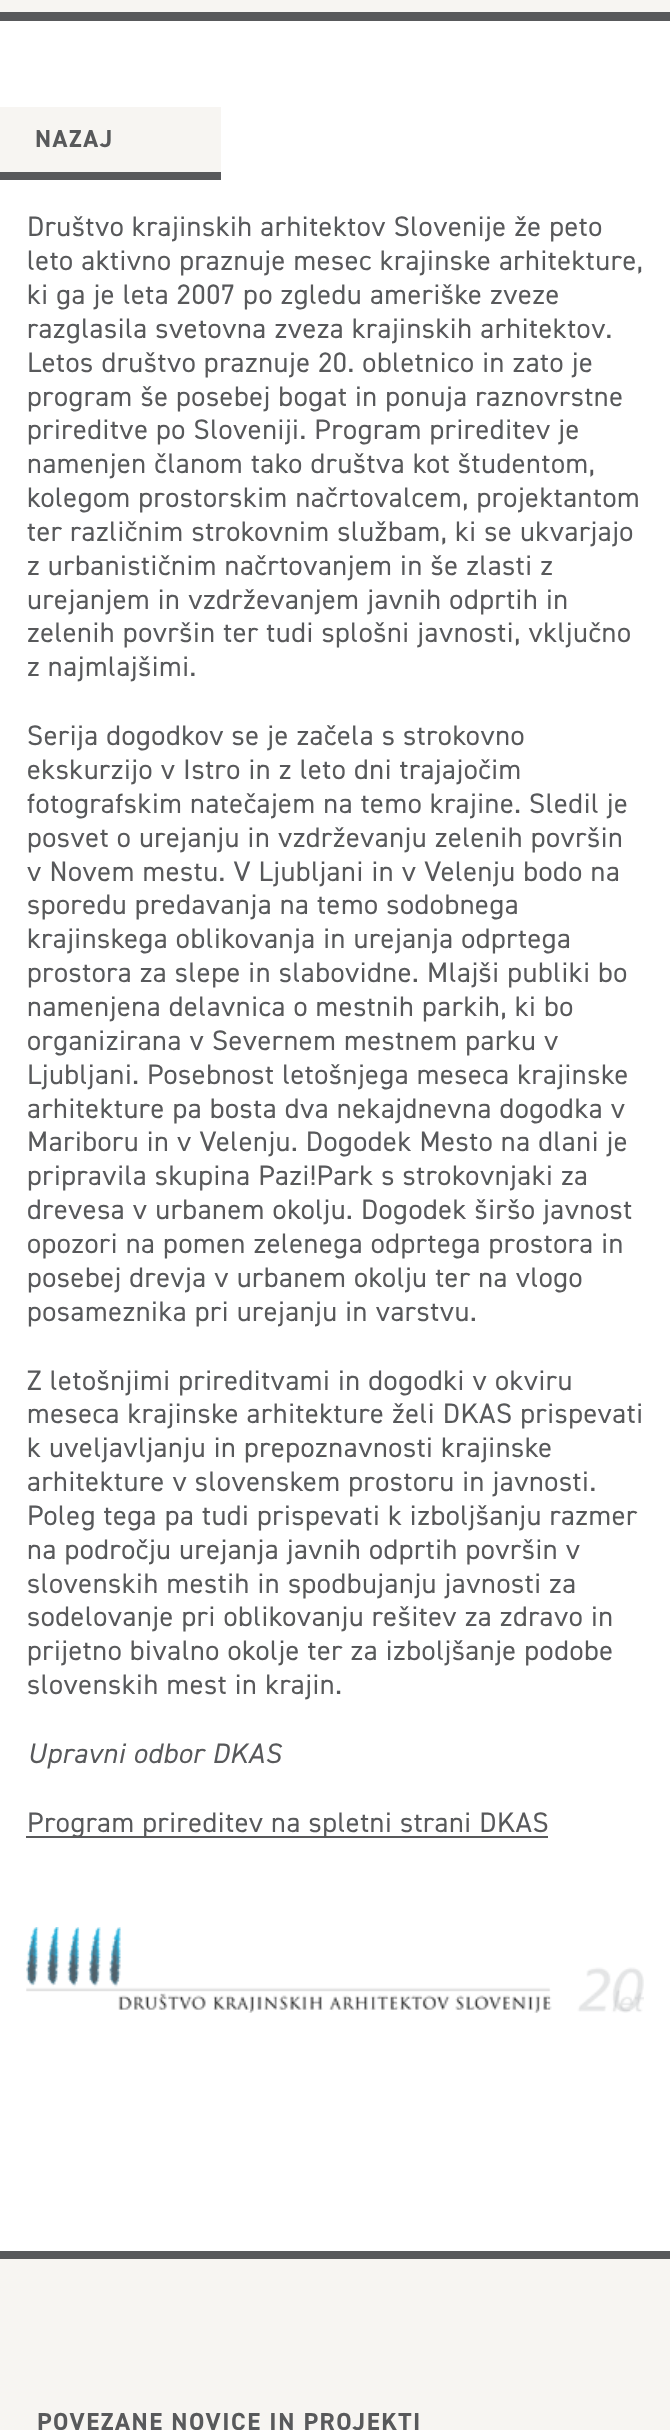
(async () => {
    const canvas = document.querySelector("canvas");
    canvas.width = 670;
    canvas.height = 2430;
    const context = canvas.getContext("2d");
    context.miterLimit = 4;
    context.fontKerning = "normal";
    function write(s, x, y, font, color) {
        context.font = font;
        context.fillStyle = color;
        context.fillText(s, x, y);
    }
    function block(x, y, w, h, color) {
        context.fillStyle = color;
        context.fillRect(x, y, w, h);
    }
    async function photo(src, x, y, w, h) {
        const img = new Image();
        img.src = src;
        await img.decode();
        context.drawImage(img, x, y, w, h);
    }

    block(0, 0, 670, 2430, "rgb(247, 245, 242)");
    block(0, 21, 670, 2230, "rgb(255, 255, 255)");
    block(0, 107, 221, 65, "rgb(247, 245, 242)");
    block(0, 172, 221, 8, "rgb(88, 89, 91)");
    context.letterSpacing = "1.5px";
    write("NAZAJ", 35, 147, "bold 24.5px 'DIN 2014'", "rgb(88, 89, 91)");
    block(0, 12, 670, 9, "rgb(88, 89, 91)");
    block(0, 2251, 670, 8, "rgb(88, 89, 91)");
    context.letterSpacing = "0.55px";
    write("Društvo krajinskih arhitektov Slovenije že peto", 27, 236, "28.25px 'DIN 2014'", "rgb(88, 89, 91)");
    write("leto aktivno praznuje mesec krajinske arhitekture,", 27, 270, "28.25px 'DIN 2014'", "rgb(88, 89, 91)");
    write("ki ga je leta 2007 po zgledu ameriške zveze", 27, 304, "28.25px 'DIN 2014'", "rgb(88, 89, 91)");
    write("razglasila svetovna zveza krajinskih arhitektov.", 27, 338, "28.25px 'DIN 2014'", "rgb(88, 89, 91)");
    write("Letos društvo praznuje 20. obletnico in zato je", 27, 372, "28.25px 'DIN 2014'", "rgb(88, 89, 91)");
    write("program še posebej bogat in ponuja raznovrstne", 27, 406, "28.25px 'DIN 2014'", "rgb(88, 89, 91)");
    write("prireditve po Sloveniji. Program prireditev je", 27, 439, "28.25px 'DIN 2014'", "rgb(88, 89, 91)");
    write("namenjen članom tako društva kot študentom,", 27, 473, "28.25px 'DIN 2014'", "rgb(88, 89, 91)");
    write("kolegom prostorskim načrtovalcem, projektantom", 27, 507, "28.25px 'DIN 2014'", "rgb(88, 89, 91)");
    write("ter različnim strokovnim službam, ki se ukvarjajo", 27, 541, "28.25px 'DIN 2014'", "rgb(88, 89, 91)");
    write("z urbanističnim načrtovanjem in še zlasti z", 27, 575, "28.25px 'DIN 2014'", "rgb(88, 89, 91)");
    write("urejanjem in vzdrževanjem javnih odprtih in", 27, 609, "28.25px 'DIN 2014'", "rgb(88, 89, 91)");
    write("zelenih površin ter tudi splošni javnosti, vključno", 27, 642, "28.25px 'DIN 2014'", "rgb(88, 89, 91)");
    write("z najmlajšimi.", 27, 676, "28.25px 'DIN 2014'", "rgb(88, 89, 91)");
    write("Serija dogodkov se je začela s strokovno", 27, 745, "28.25px 'DIN 2014'", "rgb(88, 89, 91)");
    write("ekskurzijo v Istro in z leto dni trajajočim", 27, 779, "28.25px 'DIN 2014'", "rgb(88, 89, 91)");
    write("fotografskim natečajem na temo krajine. Sledil je", 27, 813, "28.25px 'DIN 2014'", "rgb(88, 89, 91)");
    write("posvet o urejanju in vzdrževanju zelenih površin", 27, 847, "28.25px 'DIN 2014'", "rgb(88, 89, 91)");
    write("v Novem mestu. V Ljubljani in v Velenju bodo na", 27, 881, "28.25px 'DIN 2014'", "rgb(88, 89, 91)");
    write("sporedu predavanja na temo sodobnega", 27, 914, "28.25px 'DIN 2014'", "rgb(88, 89, 91)");
    write("krajinskega oblikovanja in urejanja odprtega", 27, 948, "28.25px 'DIN 2014'", "rgb(88, 89, 91)");
    write("prostora za slepe in slabovidne. Mlajši publiki bo", 27, 982, "28.25px 'DIN 2014'", "rgb(88, 89, 91)");
    write("namenjena delavnica o mestnih parkih, ki bo", 27, 1016, "28.25px 'DIN 2014'", "rgb(88, 89, 91)");
    write("organizirana v Severnem mestnem parku v", 27, 1050, "28.25px 'DIN 2014'", "rgb(88, 89, 91)");
    write("Ljubljani. Posebnost letošnjega meseca krajinske", 27, 1084, "28.25px 'DIN 2014'", "rgb(88, 89, 91)");
    write("arhitekture pa bosta dva nekajdnevna dogodka v", 27, 1118, "28.25px 'DIN 2014'", "rgb(88, 89, 91)");
    write("Mariboru in v Velenju. Dogodek Mesto na dlani je", 27, 1151, "28.25px 'DIN 2014'", "rgb(88, 89, 91)");
    write("pripravila skupina Pazi!Park s strokovnjaki za", 27, 1185, "28.25px 'DIN 2014'", "rgb(88, 89, 91)");
    write("drevesa v urbanem okolju. Dogodek širšo javnost", 27, 1219, "28.25px 'DIN 2014'", "rgb(88, 89, 91)");
    write("opozori na pomen zelenega odprtega prostora in", 27, 1253, "28.25px 'DIN 2014'", "rgb(88, 89, 91)");
    write("posebej drevja v urbanem okolju ter na vlogo", 27, 1287, "28.25px 'DIN 2014'", "rgb(88, 89, 91)");
    write("posameznika pri urejanju in varstvu.", 27, 1321, "28.25px 'DIN 2014'", "rgb(88, 89, 91)");
    write("Z letošnjimi prireditvami in dogodki v okviru", 27, 1390, "28.25px 'DIN 2014'", "rgb(88, 89, 91)");
    write("meseca krajinske arhitekture želi DKAS prispevati", 27, 1423, "28.25px 'DIN 2014'", "rgb(88, 89, 91)");
    write("k uveljavljanju in prepoznavnosti krajinske", 27, 1457, "28.25px 'DIN 2014'", "rgb(88, 89, 91)");
    write("arhitekture v slovenskem prostoru in javnosti.", 27, 1491, "28.25px 'DIN 2014'", "rgb(88, 89, 91)");
    write("Poleg tega pa tudi prispevati k izboljšanju razmer", 27, 1525, "28.25px 'DIN 2014'", "rgb(88, 89, 91)");
    write("na področju urejanja javnih odprtih površin v", 27, 1559, "28.25px 'DIN 2014'", "rgb(88, 89, 91)");
    write("slovenskih mestih in spodbujanju javnosti za", 27, 1593, "28.25px 'DIN 2014'", "rgb(88, 89, 91)");
    write("sodelovanje pri oblikovanju rešitev za zdravo in", 27, 1626, "28.25px 'DIN 2014'", "rgb(88, 89, 91)");
    write("prijetno bivalno okolje ter za izboljšanje podobe", 27, 1660, "28.25px 'DIN 2014'", "rgb(88, 89, 91)");
    write("slovenskih mest in krajin.", 27, 1694, "28.25px 'DIN 2014'", "rgb(88, 89, 91)");
    write("Upravni odbor DKAS", 27, 1763, "italic 28.25px 'DIN 2014'", "rgb(88, 89, 91)");
    block(26, 1836, 522, 2, "rgb(88, 89, 91)");
    write("Program prireditev na spletni strani DKAS", 27, 1832, "28.25px 'DIN 2014'", "rgb(88, 89, 91)");
    await photo("media/1.png", 26, 1927, 618, 86);
    context.letterSpacing = "1.5px";
    write("POVEZANE NOVICE IN PROJEKTI", 37, 2430, "bold 24.7px 'DIN 2014'", "rgb(88, 89, 91)");
})();
